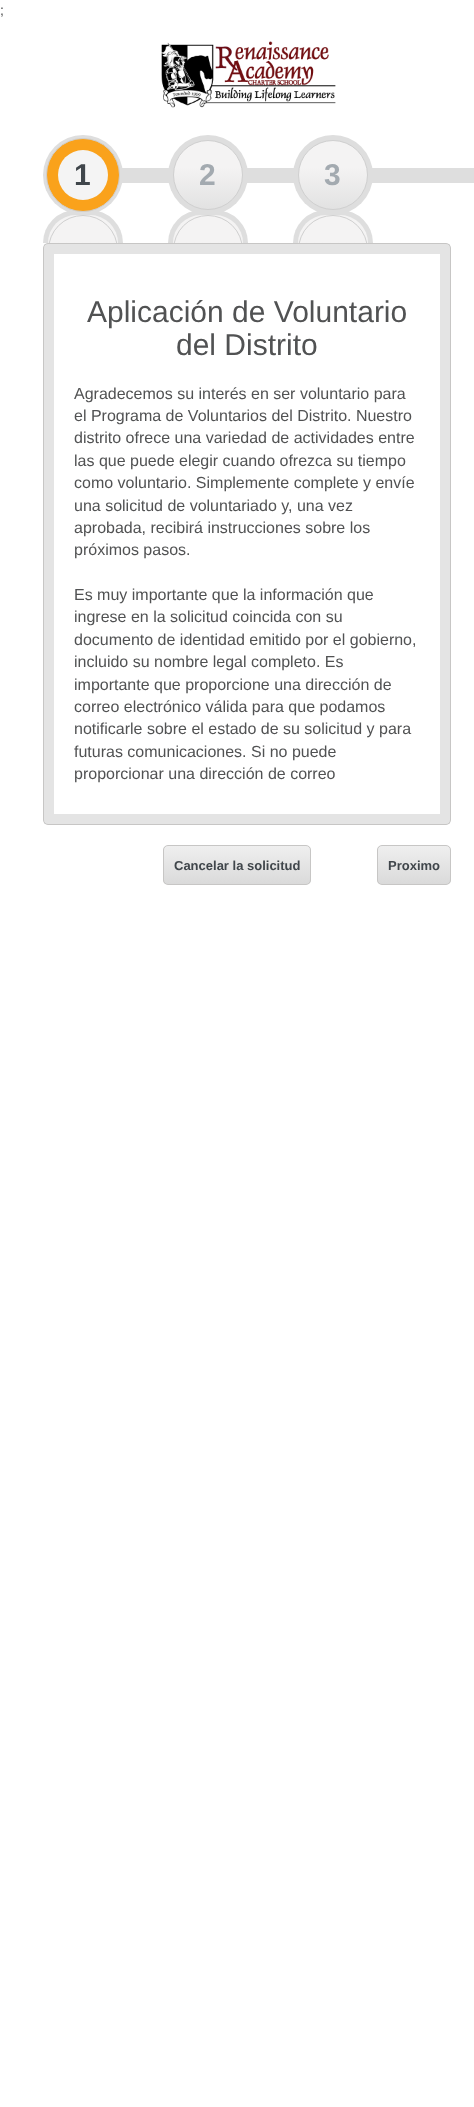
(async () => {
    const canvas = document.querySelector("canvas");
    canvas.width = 474;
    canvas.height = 2107;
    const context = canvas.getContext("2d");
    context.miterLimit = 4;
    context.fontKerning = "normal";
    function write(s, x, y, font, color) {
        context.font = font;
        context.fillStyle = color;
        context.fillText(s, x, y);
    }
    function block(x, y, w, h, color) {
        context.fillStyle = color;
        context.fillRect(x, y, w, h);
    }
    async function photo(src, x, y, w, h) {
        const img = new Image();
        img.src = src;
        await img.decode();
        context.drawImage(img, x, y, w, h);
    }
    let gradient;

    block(0, 0, 474, 2107, "rgb(255, 255, 255)");
    write(";", 0, 15, "14px Liberation Sans", "rgb(81, 82, 83)");
    await photo("media/1.png", 161, 41, 175, 67);
    context.fillStyle = "rgb(222, 222, 222)";
    context.beginPath();
    context.arc(83, 175, 40, 0, Math.PI * 2);
    context.fill();
    context.beginPath();
    context.roundRect(43, 210, 80, 33, [40, 40, 0, 0]);
    context.fill();
    context.fillStyle = "rgb(250, 162, 27)";
    context.beginPath();
    context.arc(83, 175, 36.5, 0, Math.PI * 2);
    context.fill();
    context.strokeStyle = "rgb(207, 207, 207)";
    context.stroke();
    context.fillStyle = "rgb(244, 244, 244)";
    context.beginPath();
    context.arc(83, 175, 25, 0, Math.PI * 2);
    context.fill();
    write("1", 74, 185, "bold 30px Liberation Sans", "rgb(64, 70, 75)");
    context.fillStyle = "rgb(222, 222, 222)";
    context.beginPath();
    context.arc(208, 175, 40, 0, Math.PI * 2);
    context.fill();
    block(122, 168, 47, 15, "rgb(222, 222, 222)");
    gradient = context.createLinearGradient(208, 140, 208, 210);
    gradient.addColorStop(0, "rgb(244, 243, 243)");
    gradient.addColorStop(0.39, "rgb(244, 243, 243)");
    gradient.addColorStop(0.98, "rgb(226, 226, 226)");
    context.fillStyle = gradient;
    context.beginPath();
    context.arc(208, 175, 34.5, 0, Math.PI * 2);
    context.fill();
    context.stroke();
    write("2", 199, 185, "bold 30px Liberation Sans", "rgb(163, 170, 176)");
    context.fillStyle = "rgb(222, 222, 222)";
    context.beginPath();
    context.arc(333, 175, 40, 0, Math.PI * 2);
    context.fill();
    block(247, 168, 47, 15, "rgb(222, 222, 222)");
    gradient = context.createLinearGradient(333, 140, 333, 210);
    gradient.addColorStop(0, "rgb(244, 243, 243)");
    gradient.addColorStop(0.39, "rgb(244, 243, 243)");
    gradient.addColorStop(0.98, "rgb(226, 226, 226)");
    context.fillStyle = gradient;
    context.beginPath();
    context.arc(333, 175, 34.5, 0, Math.PI * 2);
    context.fill();
    context.stroke();
    write("3", 324, 185, "bold 30px Liberation Sans", "rgb(163, 170, 176)");
    block(372, 168, 102, 15, "rgb(222, 222, 222)");
    context.fillStyle = "rgb(255, 255, 255)";
    context.beginPath();
    context.roundRect(58, 225, 50, 18, [25, 25, 0, 0]);
    context.fill();
    gradient = context.createLinearGradient(83, 215, 83, 285);
    gradient.addColorStop(0, "rgb(244, 243, 243)");
    gradient.addColorStop(0.39, "rgb(244, 243, 243)");
    gradient.addColorStop(0.98, "rgb(226, 226, 226)");
    context.fillStyle = gradient;
    context.beginPath();
    context.roundRect(48, 215, 70, 28, [35, 35, 0, 0]);
    context.fill();
    context.beginPath();
    context.moveTo(49, 249);
    context.lineTo(445, 249);
    context.lineTo(445, 819);
    context.lineTo(49, 819);
    context.closePath();
    context.strokeStyle = "rgb(228, 228, 228)";
    context.lineWidth = 10;
    context.stroke();
    context.beginPath();
    context.roundRect(43.5, 243.5, 407, 581, 4.5);
    context.strokeStyle = "rgb(199, 198, 197)";
    context.lineWidth = 1;
    context.stroke();
    context.save();
    context.beginPath();
    context.rect(20, 128, 454, 115);
    context.clip();
    context.beginPath();
    context.arc(83, 250, 34.5, 0, Math.PI * 2);
    context.strokeStyle = "rgb(207, 207, 207)";
    context.stroke();
    context.restore();
    context.fillStyle = "rgb(222, 222, 222)";
    context.beginPath();
    context.roundRect(168, 210, 80, 33, [40, 40, 0, 0]);
    context.fill();
    context.fillStyle = "rgb(255, 255, 255)";
    context.beginPath();
    context.roundRect(183, 225, 50, 18, [25, 25, 0, 0]);
    context.fill();
    gradient = context.createLinearGradient(208, 215, 208, 285);
    gradient.addColorStop(0, "rgb(244, 243, 243)");
    gradient.addColorStop(0.39, "rgb(244, 243, 243)");
    gradient.addColorStop(0.98, "rgb(226, 226, 226)");
    context.fillStyle = gradient;
    context.beginPath();
    context.roundRect(173, 215, 70, 28, [35, 35, 0, 0]);
    context.fill();
    context.save();
    context.beginPath();
    context.rect(20, 128, 454, 115);
    context.clip();
    context.beginPath();
    context.arc(208, 250, 34.5, 0, Math.PI * 2);
    context.strokeStyle = "rgb(207, 207, 207)";
    context.stroke();
    context.restore();
    context.fillStyle = "rgb(222, 222, 222)";
    context.beginPath();
    context.roundRect(293, 210, 80, 33, [40, 40, 0, 0]);
    context.fill();
    context.fillStyle = "rgb(255, 255, 255)";
    context.beginPath();
    context.roundRect(308, 225, 50, 18, [25, 25, 0, 0]);
    context.fill();
    gradient = context.createLinearGradient(333, 215, 333, 285);
    gradient.addColorStop(0, "rgb(244, 243, 243)");
    gradient.addColorStop(0.39, "rgb(244, 243, 243)");
    gradient.addColorStop(0.98, "rgb(226, 226, 226)");
    context.fillStyle = gradient;
    context.beginPath();
    context.roundRect(298, 215, 70, 28, [35, 35, 0, 0]);
    context.fill();
    context.save();
    context.beginPath();
    context.rect(20, 128, 454, 115);
    context.clip();
    context.beginPath();
    context.arc(333, 250, 34.5, 0, Math.PI * 2);
    context.strokeStyle = "rgb(207, 207, 207)";
    context.stroke();
    context.restore();
    write("Aplicación de Voluntario", 87, 322, "30px Liberation Sans", "rgb(81, 82, 83)");
    write("del Distrito", 176, 355, "30px Liberation Sans", "rgb(81, 82, 83)");
    write("Agradecemos su interés en ser voluntario para", 74, 399, "16px Liberation Sans", "rgb(81, 82, 83)");
    write("el Programa de Voluntarios del Distrito. Nuestro", 74, 421, "16px Liberation Sans", "rgb(81, 82, 83)");
    write("distrito ofrece una variedad de actividades entre", 74, 443, "16px Liberation Sans", "rgb(81, 82, 83)");
    write("las que puede elegir cuando ofrezca su tiempo", 74, 466, "16px Liberation Sans", "rgb(81, 82, 83)");
    write("como voluntario. Simplemente complete y envíe", 74, 488, "16px Liberation Sans", "rgb(81, 82, 83)");
    write("una solicitud de voluntariado y, una vez", 74, 511, "16px Liberation Sans", "rgb(81, 82, 83)");
    write("aprobada, recibirá instrucciones sobre los", 74, 533, "16px Liberation Sans", "rgb(81, 82, 83)");
    write("próximos pasos.", 74, 555, "16px Liberation Sans", "rgb(81, 82, 83)");
    write("Es muy importante que la información que", 74, 600, "16px Liberation Sans", "rgb(81, 82, 83)");
    write("ingrese en la solicitud coincida con su", 74, 622, "16px Liberation Sans", "rgb(81, 82, 83)");
    write("documento de identidad emitido por el gobierno,", 74, 645, "16px Liberation Sans", "rgb(81, 82, 83)");
    write("incluido su nombre legal completo. Es", 74, 667, "16px Liberation Sans", "rgb(81, 82, 83)");
    write("importante que proporcione una dirección de", 74, 690, "16px Liberation Sans", "rgb(81, 82, 83)");
    write("correo electrónico válida para que podamos", 74, 712, "16px Liberation Sans", "rgb(81, 82, 83)");
    write("notificarle sobre el estado de su solicitud y para", 74, 734, "16px Liberation Sans", "rgb(81, 82, 83)");
    write("futuras comunicaciones. Si no puede", 74, 757, "16px Liberation Sans", "rgb(81, 82, 83)");
    write("proporcionar una dirección de correo", 74, 779, "16px Liberation Sans", "rgb(81, 82, 83)");
    context.save();
    context.beginPath();
    context.roundRect(377, 845, 74, 40, 5);
    context.clip();
    gradient = context.createLinearGradient(414, 846, 414, 884);
    gradient.addColorStop(0, "rgb(239, 239, 239)");
    gradient.addColorStop(1, "rgb(218, 218, 218)");
    context.fillStyle = gradient;
    context.fillRect(377, 846, 74, 38);
    context.restore();
    context.beginPath();
    context.roundRect(377.5, 845.5, 73, 39, 4.5);
    context.stroke();
    write("Proximo", 388, 870, "bold 13px Liberation Sans", "rgb(64, 70, 75)");
    context.save();
    context.beginPath();
    context.roundRect(163, 845, 148, 40, 5);
    context.clip();
    gradient = context.createLinearGradient(237, 846, 237, 884);
    gradient.addColorStop(0, "rgb(239, 239, 239)");
    gradient.addColorStop(1, "rgb(218, 218, 218)");
    context.fillStyle = gradient;
    context.fillRect(163, 846, 148, 38);
    context.restore();
    context.beginPath();
    context.roundRect(163.5, 845.5, 147, 39, 4.5);
    context.stroke();
    write("Cancelar la solicitud", 174, 870, "bold 13px Liberation Sans", "rgb(64, 70, 75)");
})();
